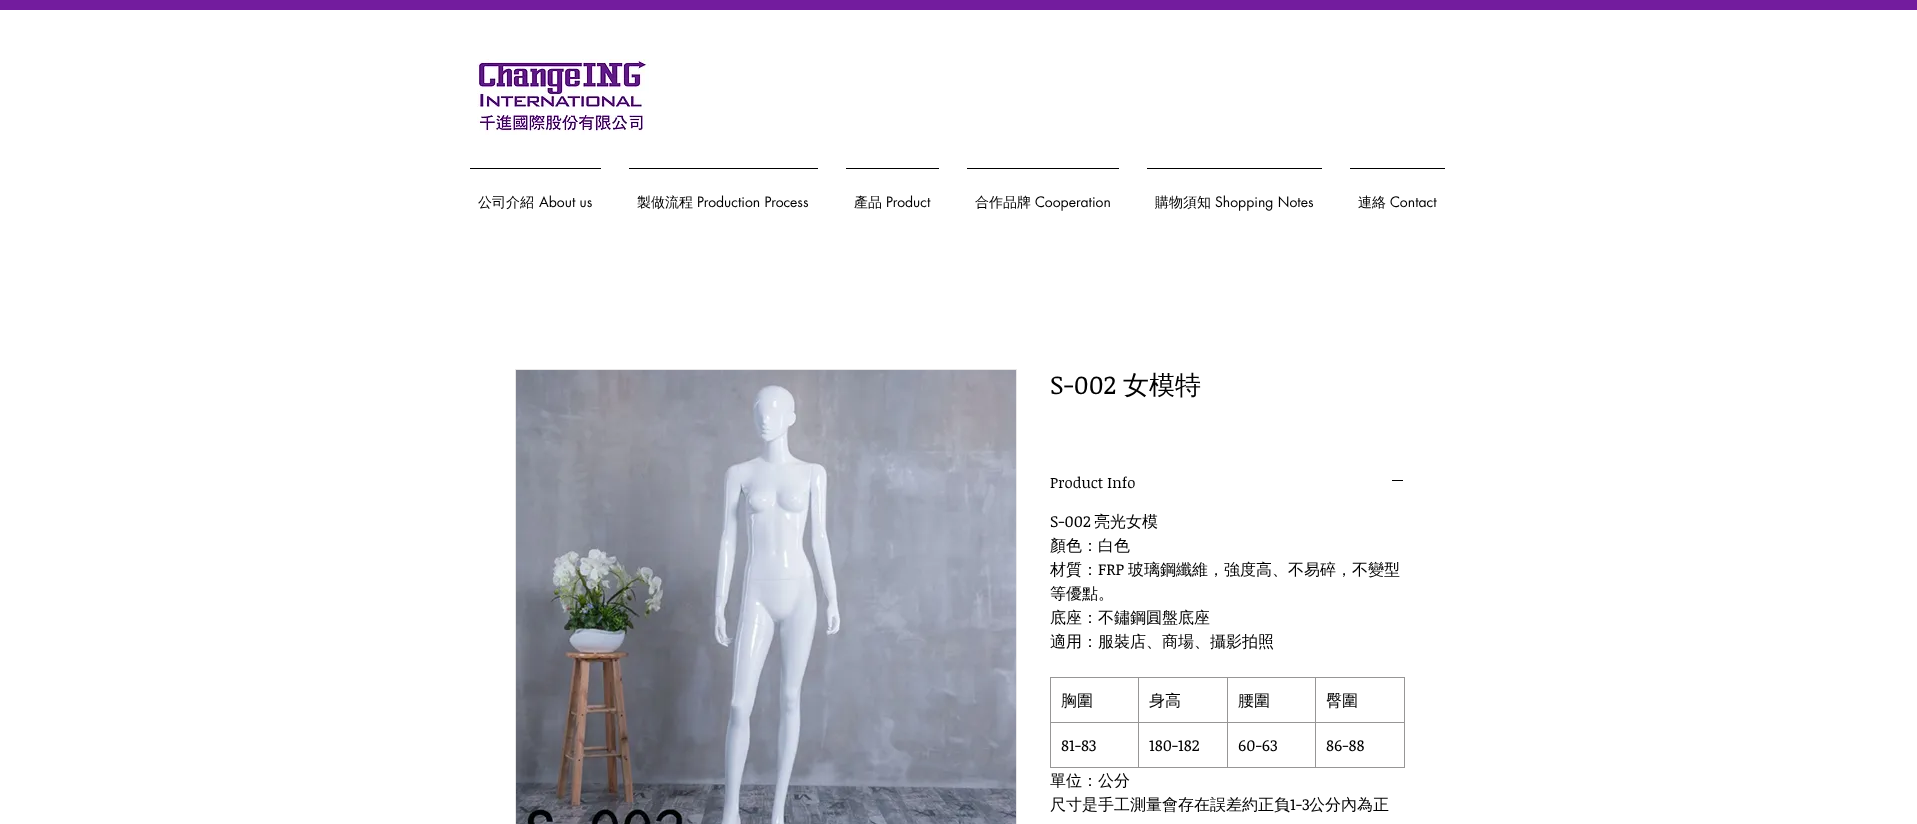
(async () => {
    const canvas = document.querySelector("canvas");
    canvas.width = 1917;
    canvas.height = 824;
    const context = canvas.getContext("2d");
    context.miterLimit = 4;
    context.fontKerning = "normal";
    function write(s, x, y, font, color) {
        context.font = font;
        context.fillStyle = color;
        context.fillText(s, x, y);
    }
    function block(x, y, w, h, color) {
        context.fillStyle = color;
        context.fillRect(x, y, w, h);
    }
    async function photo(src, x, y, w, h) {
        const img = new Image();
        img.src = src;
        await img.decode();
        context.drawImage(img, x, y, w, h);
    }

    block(0, 0, 1917, 824, "rgb(255, 255, 255)");
    block(0, 0, 1917, 10, "rgb(115, 28, 158)");
    await photo("media/1.png", 477, 59, 172, 76);
    block(470, 168, 131, 1, "rgb(0, 0, 0)");
    write("公司介紹", 478, 207, "500 14px WenQuanYi Zen Hei", "rgb(0, 0, 0)");
    write("About us", 539, 207, "14px futura", "rgb(0, 0, 0)");
    block(629, 168, 189, 1, "rgb(0, 0, 0)");
    write("製做流程", 637, 207, "500 14px WenQuanYi Zen Hei", "rgb(0, 0, 0)");
    write("Production Process", 697, 207, "14px futura", "rgb(0, 0, 0)");
    block(846, 168, 93, 1, "rgb(0, 0, 0)");
    write("產品", 854, 207, "500 14px WenQuanYi Zen Hei", "rgb(0, 0, 0)");
    write("Product", 886, 207, "14px futura", "rgb(0, 0, 0)");
    block(967, 168, 152, 1, "rgb(0, 0, 0)");
    write("合作品牌", 975, 207, "500 14px WenQuanYi Zen Hei", "rgb(0, 0, 0)");
    write("Cooperation", 1035, 207, "14px futura", "rgb(0, 0, 0)");
    block(1147, 168, 175, 1, "rgb(0, 0, 0)");
    write("購物須知", 1155, 207, "500 14px WenQuanYi Zen Hei", "rgb(0, 0, 0)");
    write("Shopping Notes", 1215, 207, "14px futura", "rgb(0, 0, 0)");
    block(1350, 168, 95, 1, "rgb(0, 0, 0)");
    write("連絡", 1358, 207, "500 14px WenQuanYi Zen Hei", "rgb(0, 0, 0)");
    write("Contact", 1390, 207, "14px futura", "rgb(0, 0, 0)");
    context.strokeStyle = "rgb(232, 231, 231)";
    context.strokeRect(515.5, 369.5, 501, 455);
    await photo("media/2.png", 516, 370, 500, 454);
    write("S-002", 1050, 394, "26px Noticia Text", "rgb(0, 0, 0)");
    write("女模特", 1123, 394, "500 26px WenQuanYi Zen Hei", "rgb(0, 0, 0)");
    write("Product Info", 1050, 488, "15px Noticia Text", "rgb(0, 0, 0)");
    block(1392, 480, 11, 1, "rgb(0, 0, 0)");
    write("S-002", 1050, 527, "16px Noticia Text", "rgb(0, 0, 0)");
    write("亮光女模", 1094, 527, "500 16px WenQuanYi Zen Hei", "rgb(0, 0, 0)");
    write("顏色：白色", 1050, 551, "500 16px WenQuanYi Zen Hei", "rgb(0, 0, 0)");
    write("材質：", 1050, 575, "500 16px WenQuanYi Zen Hei", "rgb(0, 0, 0)");
    write("FRP", 1098, 575, "16px Noticia Text", "rgb(0, 0, 0)");
    write("玻璃鋼纖維，強度高、不易碎，不變型", 1128, 575, "500 16px WenQuanYi Zen Hei", "rgb(0, 0, 0)");
    write("等優點。", 1050, 599, "500 16px WenQuanYi Zen Hei", "rgb(0, 0, 0)");
    write("底座：不鏽鋼圓盤底座", 1050, 623, "500 16px WenQuanYi Zen Hei", "rgb(0, 0, 0)");
    write("適用：服裝店、商場、攝影拍照", 1050, 647, "500 16px WenQuanYi Zen Hei", "rgb(0, 0, 0)");
    block(1315, 677, 90, 1, "rgb(151, 150, 150)");
    block(1315, 722, 90, 1, "rgb(151, 150, 150)");
    block(1404, 722, 1, 46, "rgb(151, 150, 150)");
    block(1315, 767, 90, 1, "rgb(151, 150, 150)");
    block(1315, 722, 1, 46, "rgb(151, 150, 150)");
    block(1227, 722, 89, 1, "rgb(151, 150, 150)");
    block(1315, 677, 1, 46, "rgb(151, 150, 150)");
    block(1227, 677, 89, 1, "rgb(151, 150, 150)");
    block(1227, 767, 89, 1, "rgb(151, 150, 150)");
    block(1227, 722, 1, 46, "rgb(151, 150, 150)");
    block(1138, 722, 90, 1, "rgb(151, 150, 150)");
    block(1227, 677, 1, 46, "rgb(151, 150, 150)");
    block(1138, 677, 90, 1, "rgb(151, 150, 150)");
    block(1138, 767, 90, 1, "rgb(151, 150, 150)");
    block(1138, 722, 1, 46, "rgb(151, 150, 150)");
    block(1050, 722, 89, 1, "rgb(151, 150, 150)");
    block(1138, 677, 1, 46, "rgb(151, 150, 150)");
    block(1050, 677, 89, 1, "rgb(151, 150, 150)");
    block(1050, 767, 89, 1, "rgb(151, 150, 150)");
    block(1050, 722, 1, 46, "rgb(151, 150, 150)");
    block(1050, 677, 1, 46, "rgb(151, 150, 150)");
    write("胸圍", 1061, 706, "500 16px WenQuanYi Zen Hei", "rgb(0, 0, 0)");
    write("身高", 1149, 706, "500 16px WenQuanYi Zen Hei", "rgb(0, 0, 0)");
    write("腰圍", 1238, 706, "500 16px WenQuanYi Zen Hei", "rgb(0, 0, 0)");
    block(1404, 677, 1, 46, "rgb(151, 150, 150)");
    write("臀圍", 1326, 706, "500 16px WenQuanYi Zen Hei", "rgb(0, 0, 0)");
    write("81-83", 1061, 751, "16px Noticia Text", "rgb(0, 0, 0)");
    write("180-182", 1149, 751, "16px Noticia Text", "rgb(0, 0, 0)");
    write("60-63", 1238, 751, "16px Noticia Text", "rgb(0, 0, 0)");
    write("86-88", 1326, 751, "16px Noticia Text", "rgb(0, 0, 0)");
    write("單位：公分", 1050, 786, "500 16px WenQuanYi Zen Hei", "rgb(0, 0, 0)");
    write("尺寸是手工測量會存在誤差約正負", 1050, 810, "500 16px WenQuanYi Zen Hei", "rgb(0, 0, 0)");
    write("1-3", 1290, 810, "16px Noticia Text", "rgb(0, 0, 0)");
    write("公分內為正", 1309, 810, "500 16px WenQuanYi Zen Hei", "rgb(0, 0, 0)");
})();
